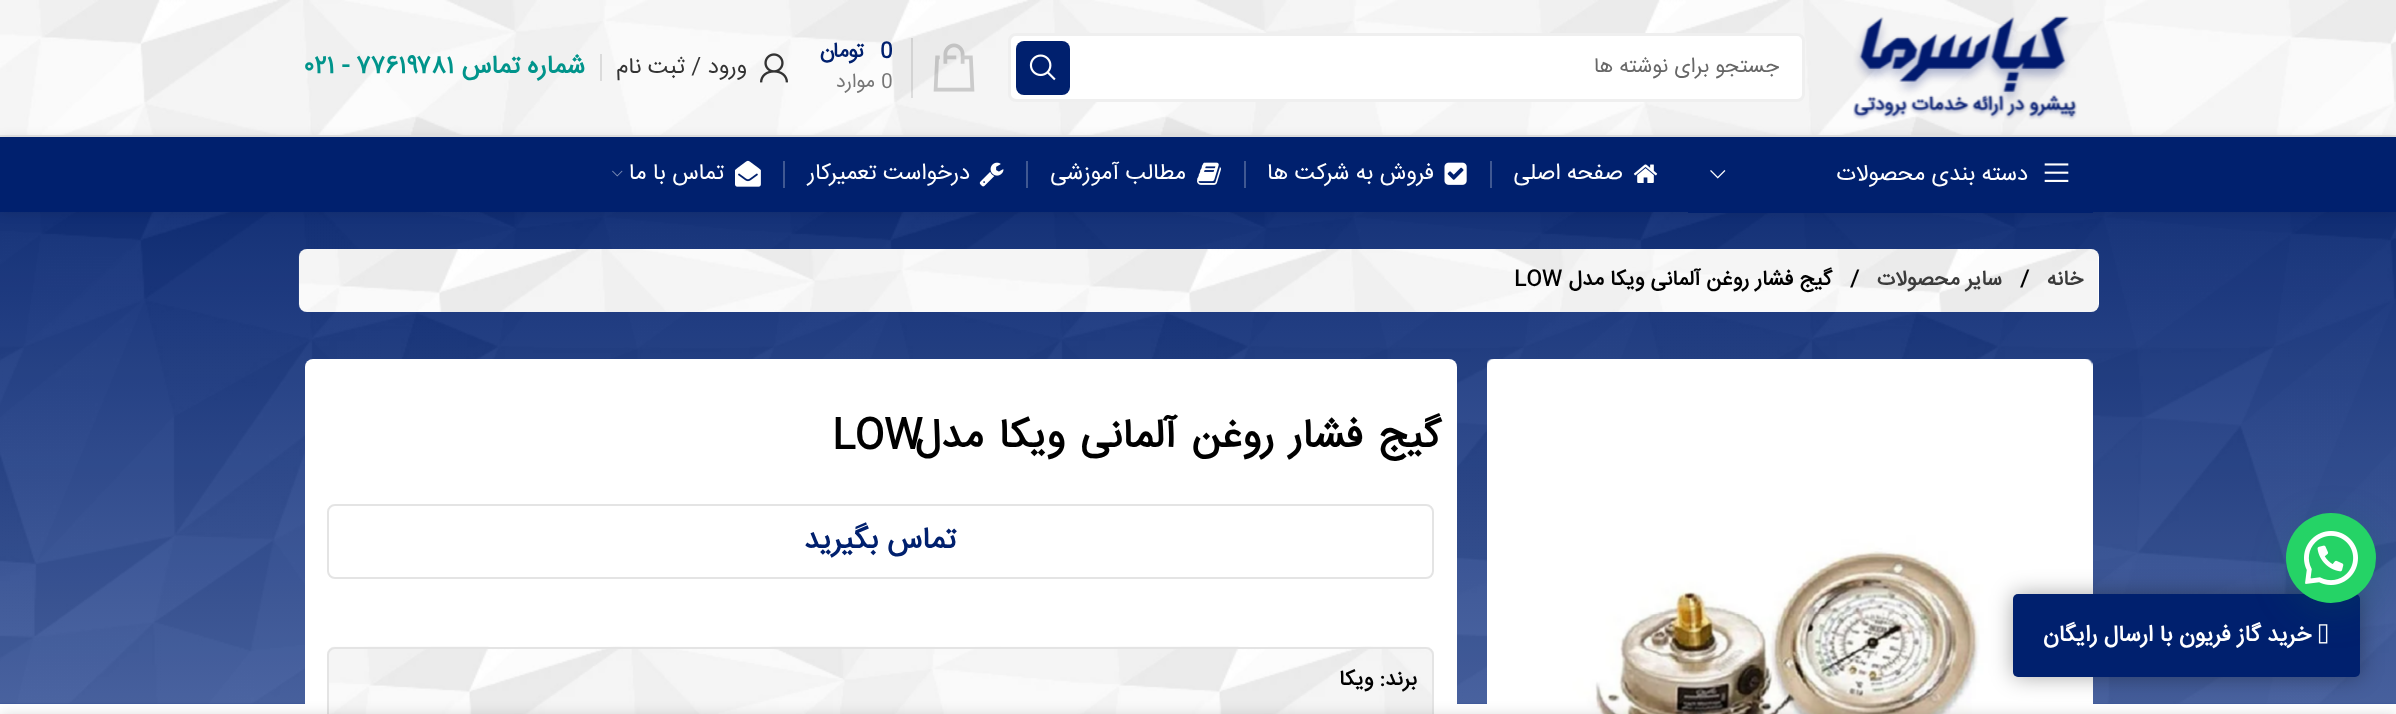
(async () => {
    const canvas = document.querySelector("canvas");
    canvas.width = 2396;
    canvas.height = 714;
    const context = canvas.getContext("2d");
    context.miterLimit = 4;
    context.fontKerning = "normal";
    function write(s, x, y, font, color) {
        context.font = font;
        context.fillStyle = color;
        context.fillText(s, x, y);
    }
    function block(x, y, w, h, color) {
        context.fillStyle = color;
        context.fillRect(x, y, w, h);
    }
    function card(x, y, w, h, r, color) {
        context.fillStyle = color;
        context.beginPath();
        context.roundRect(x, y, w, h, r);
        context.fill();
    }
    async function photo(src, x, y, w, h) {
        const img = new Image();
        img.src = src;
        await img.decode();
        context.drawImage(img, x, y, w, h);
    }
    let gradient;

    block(0, 0, 2396, 714, "rgb(255, 255, 255)");
    gradient = context.createLinearGradient(1199, 196, 1199, 704);
    gradient.addColorStop(0, "rgb(0, 32, 110)");
    gradient.addColorStop(1, "rgb(59, 87, 154)");
    context.fillStyle = gradient;
    context.fillRect(0, 212, 2396, 492);
    await photo("media/16.png", 0, 212, 2396, 492);
    await photo("media/18.png", 1487, 359, 606, 355);
    context.fillStyle = "rgba(0, 0, 0, 0.34)";
    context.filter = "blur(11px)";
    context.beginPath();
    context.roundRect(2013, 594, 347, 83, 5);
    context.fill();
    context.filter = "none";
    card(2013, 594, 347, 83, 5, "rgb(0, 32, 110)");
    await photo("media/15.png", 2318, 624, 10, 20);
    context.fillStyle = "rgba(7, 94, 84, 0.24)";
    context.filter = "blur(18px)";
    context.beginPath();
    context.roundRect(2288, 522, 90, 90, 45);
    context.fill();
    context.filter = "none";
    context.fillStyle = "rgb(37, 211, 102)";
    context.beginPath();
    context.arc(2331, 558, 45, 0, Math.PI * 2);
    context.fill();
    await photo("media/1.png", 2304, 531, 54, 54);
    await photo("media/2.png", 0, 0, 2396, 135);
    block(0, 135, 2396, 2, "rgb(229, 229, 229)");
    context.fillStyle = "rgba(0, 0, 0, 0.1)";
    context.filter = "blur(6px)";
    context.beginPath();
    context.rect(0, 138, 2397, 75);
    context.fill();
    context.filter = "none";
    await photo("media/3.png", 1853, 16, 224, 104);
    context.fillStyle = "rgb(255, 255, 255)";
    context.beginPath();
    context.roundRect(1009.5, 34.5, 794, 66, 6.5);
    context.fill();
    context.strokeStyle = "rgb(239, 239, 239)";
    context.lineWidth = 3;
    context.stroke();
    context.direction = "rtl";
    write("جستجو برای نوشته ها", 1779, 72, "21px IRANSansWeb", "rgb(103, 103, 103)");
    card(1016, 41, 54, 54, 8, "rgb(0, 32, 110)");
    await photo("media/4.png", 1029, 54, 27, 27);
    await photo("media/5.png", 933, 43, 42, 49);
    block(911, 38, 2, 60, "rgba(0, 0, 0, 0.1)");
    context.direction = "ltr";
    write("0", 880, 57, "bold 21px IRANSansWeb", "rgb(0, 32, 110)");
    context.direction = "rtl";
    write("تومان", 865, 57, "bold 21px IRANSansWeb", "rgb(0, 32, 110)");
    context.direction = "ltr";
    write("0", 881, 87, "19.5px IRANSansWeb", "rgb(118, 118, 118)");
    context.direction = "rtl";
    write("موارد", 875, 87, "19.5px IRANSansWeb", "rgb(118, 118, 118)");
    await photo("media/6.png", 760, 53, 28, 30);
    write("ورود / ثبت نام", 747, 73, "22.5px IRANSansWeb", "rgb(51, 51, 51)");
    block(600, 54, 2, 27, "rgb(219, 219, 219)");
    write("شماره تماس", 585, 73, "bold 25.5px IRANSansWeb", "rgb(0, 148, 139)");
    context.direction = "ltr";
    write("۷۷۶۱۹۷۸۱", 356, 73, "bold 25.5px IRANSansWeb", "rgb(0, 148, 139)");
    write("۰۲۱ -", 305, 73, "bold 25.5px IRANSansWeb", "rgb(0, 148, 139)");
    block(0, 137, 2396, 75, "rgb(0, 32, 110)");
    block(1688, 212, 405, 1, "rgb(0, 32, 110)");
    await photo("media/7.png", 2044, 163, 25, 19);
    context.direction = "rtl";
    write("دسته بندی محصولات", 2028, 180, "22.5px IRANSansWeb", "rgb(255, 255, 255)");
    await photo("media/8.png", 1710, 170, 16, 9);
    await photo("media/9.png", 1633, 164, 25, 19);
    write("صفحه اصلی", 1623, 179, "22.5px IRANSansWeb", "rgb(255, 255, 255)");
    block(1490, 161, 2, 27, "rgb(64, 88, 146)");
    await photo("media/10.png", 1444, 162, 23, 23);
    write("فروش به شركت ها", 1434, 179, "22.5px IRANSansWeb", "rgb(255, 255, 255)");
    block(1244, 161, 2, 27, "rgb(64, 88, 146)");
    await photo("media/11.png", 1197, 162, 24, 23);
    write("مطالب آموزشی", 1186, 179, "22.5px IRANSansWeb", "rgb(255, 255, 255)");
    block(1026, 161, 2, 27, "rgb(64, 88, 146)");
    await photo("media/12.png", 979, 162, 25, 25);
    write("درخواست تعمیرکار", 970, 179, "22.5px IRANSansWeb", "rgb(255, 255, 255)");
    block(783, 161, 2, 27, "rgb(64, 88, 146)");
    await photo("media/13.png", 735, 160, 26, 27);
    write("تماس با ما", 724, 179, "22.5px IRANSansWeb", "rgb(255, 255, 255)");
    await photo("media/14.png", 612, 170, 11, 7);
    write("خرید گاز فریون با ارسال رایگان", 2311, 641, "bold 22.5px IRANSansWeb", "rgb(255, 255, 255)");
    card(299, 249, 1800, 63, 8, "rgb(255, 255, 255)");
    await photo("media/17.png", 298, 249, 1800, 63);
    write("خانه", 2083, 285, "bold 21px IRANSansWeb", "rgb(59, 59, 59)");
    context.direction = "ltr";
    write("/", 2020, 285, "bold 21px IRANSansWeb", "rgb(0, 0, 0)");
    context.direction = "rtl";
    write("سایر محصولات", 2002, 285, "bold 21px IRANSansWeb", "rgb(59, 59, 59)");
    context.direction = "ltr";
    write("/", 1850, 285, "bold 21px IRANSansWeb", "rgb(0, 0, 0)");
    context.direction = "rtl";
    write("گیج فشار روغن آلمانی ویکا مدل", 1832, 285, "bold 21px IRANSansWeb", "rgb(0, 0, 0)");
    context.direction = "ltr";
    write("LOW", 1514, 285, "bold 21px IRANSansWeb", "rgb(0, 0, 0)");
    card(305, 359, 1152, 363, 8, "rgb(255, 255, 255)");
    context.letterSpacing = "-0.9px";
    context.wordSpacing = "4.5px";
    context.direction = "rtl";
    write("گیج فشار روغن آلمانی ویکا مدل", 1441, 447, "bold 40.5px IRANSansWeb", "rgb(0, 0, 0)");
    context.wordSpacing = "0px";
    context.direction = "ltr";
    write("LOW", 832, 447, "bold 40.5px IRANSansWeb", "rgb(0, 0, 0)");
    context.beginPath();
    context.roundRect(328, 505, 1105, 73, 7);
    context.strokeStyle = "rgb(228, 228, 228)";
    context.lineWidth = 2;
    context.stroke();
    context.letterSpacing = "0px";
    context.direction = "rtl";
    write("تماس بگیرید", 956, 548, "bold 30px IRANSansWeb", "rgb(0, 32, 110)");
    await photo("media/19.png", 327, 646, 1107, 68);
    context.beginPath();
    context.roundRect(328, 648, 1105, 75, 7);
    context.stroke();
    write("برند: ویکا", 1417, 685, "bold 21px IRANSansWeb", "rgb(0, 0, 0)");
    context.fillStyle = "rgba(0, 0, 0, 0.12)";
    context.filter = "blur(7px)";
    context.beginPath();
    context.rect(0, 714, 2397, 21);
    context.fill();
    context.filter = "none";
})();
